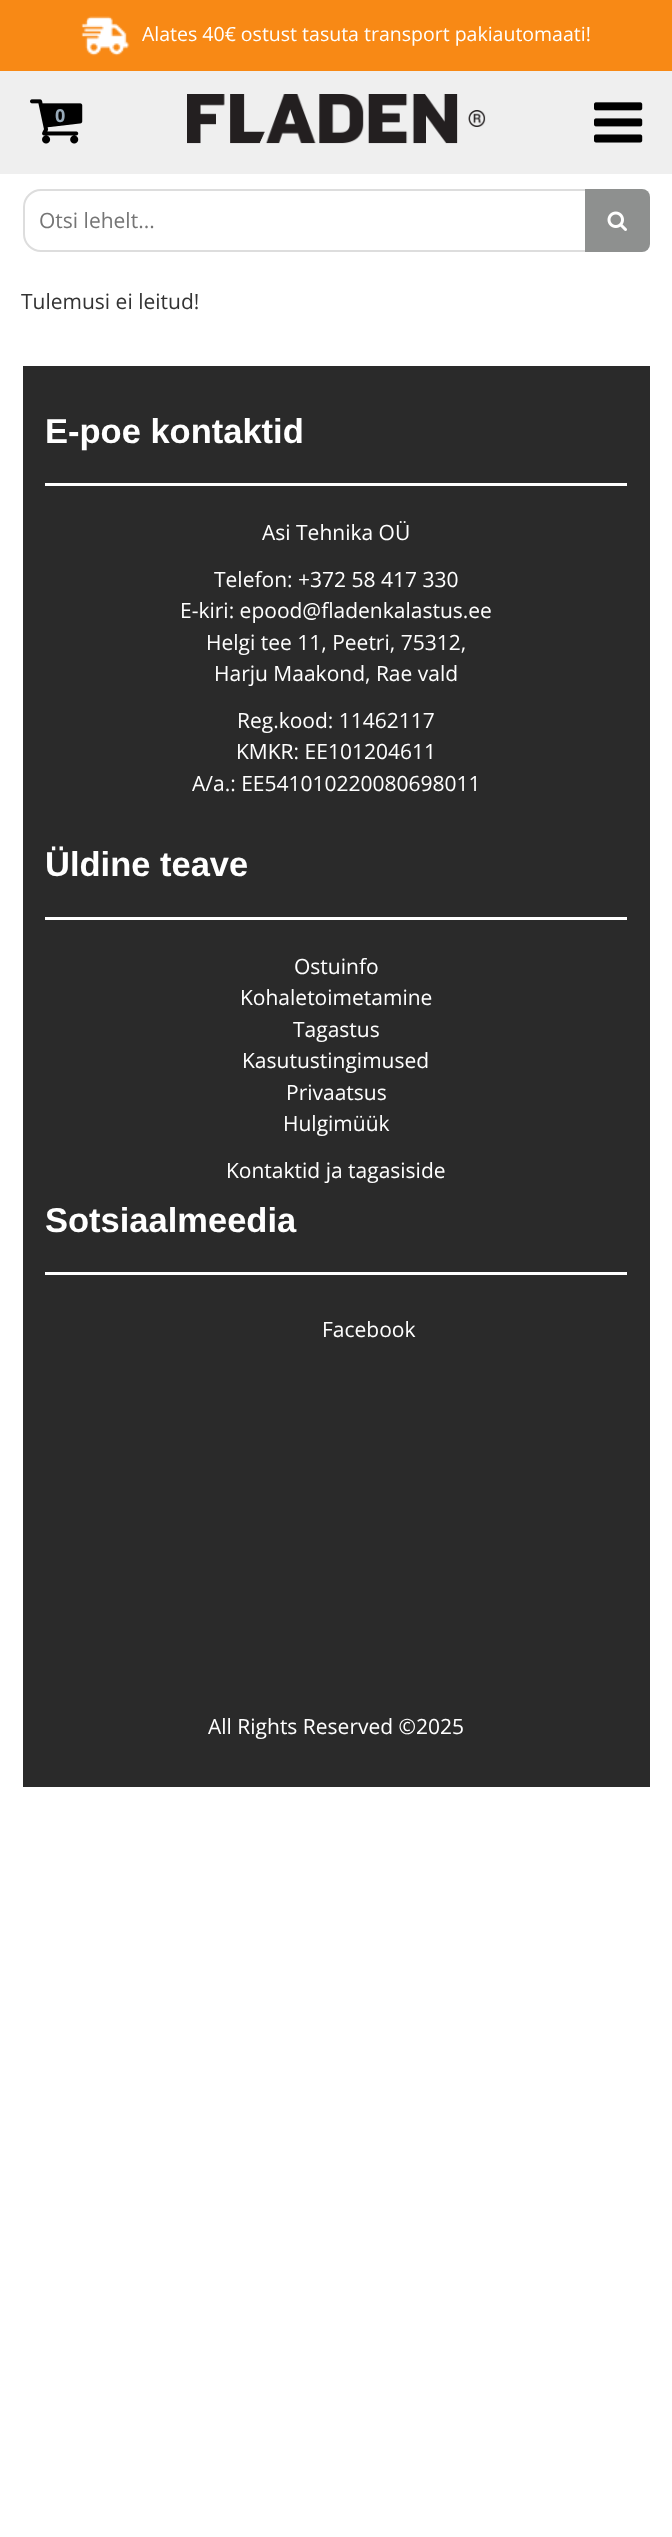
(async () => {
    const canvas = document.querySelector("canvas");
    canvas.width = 672;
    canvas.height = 2537;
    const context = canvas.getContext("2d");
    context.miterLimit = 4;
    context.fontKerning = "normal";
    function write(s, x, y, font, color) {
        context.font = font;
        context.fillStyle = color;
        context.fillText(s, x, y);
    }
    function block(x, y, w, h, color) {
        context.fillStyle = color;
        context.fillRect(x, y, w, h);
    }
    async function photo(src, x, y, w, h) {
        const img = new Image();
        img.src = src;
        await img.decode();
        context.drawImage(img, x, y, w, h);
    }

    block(0, 0, 672, 2537, "rgb(255, 255, 255)");
    block(0, 71, 672, 103, "rgb(239, 239, 239)");
    block(0, 0, 672, 71, "rgb(248, 137, 21)");
    await photo("media/1.png", 81, 16, 49, 40);
    write("Alates 40€ ostust tasuta transport pakiautomaati!", 142, 41, "19.5px Open Sans", "rgb(255, 255, 255)");
    await photo("media/2.png", 187, 94, 299, 50);
    await photo("media/3.png", 30, 99, 53, 45);
    write("0", 55, 122, "bold 18px Open Sans", "rgb(152, 170, 185)");
    await photo("media/4.png", 594, 102, 49, 41);
    context.beginPath();
    context.roundRect(24, 190, 625, 61, 17);
    context.strokeStyle = "rgb(221, 221, 221)";
    context.lineWidth = 2;
    context.stroke();
    write("Otsi lehelt...", 39, 228, "21px Open Sans", "rgb(117, 117, 117)");
    context.fillStyle = "rgb(142, 144, 143)";
    context.beginPath();
    context.roundRect(585, 189, 65, 63, [0, 8, 8, 0]);
    context.fill();
    await photo("media/5.png", 607, 211, 20, 20);
    write("Tulemusi ei leitud!", 21, 309, "21px Open Sans", "rgb(51, 51, 51)");
    block(23, 366, 627, 1421, "rgb(42, 42, 42)");
    block(45, 483, 582, 3, "rgb(255, 255, 255)");
    write("E-poe kontaktid", 45, 443, "bold 34.5px Liberation Sans", "rgb(255, 255, 255)");
    write("Asi Tehnika OÜ", 262, 540, "21px Open Sans", "rgb(255, 255, 255)");
    write("Telefon: +372 58 417 330", 214, 587, "21px Open Sans", "rgb(255, 255, 255)");
    write("E-kiri: epood@fladenkalastus.ee", 180, 618, "21px Open Sans", "rgb(255, 255, 255)");
    write("Helgi tee 11, Peetri, 75312,", 206, 650, "21px Open Sans", "rgb(255, 255, 255)");
    write("Harju Maakond, Rae vald", 214, 681, "21px Open Sans", "rgb(255, 255, 255)");
    write("Reg.kood: 11462117", 237, 728, "21px Open Sans", "rgb(255, 255, 255)");
    write("KMKR: EE101204611", 236, 759, "21px Open Sans", "rgb(255, 255, 255)");
    write("A/a.: EE541010220080698011", 192, 791, "21px Open Sans", "rgb(255, 255, 255)");
    block(45, 917, 582, 3, "rgb(255, 255, 255)");
    write("Üldine teave", 45, 876, "bold 34.5px Liberation Sans", "rgb(255, 255, 255)");
    write("Ostuinfo", 294, 974, "21px Open Sans", "rgb(255, 255, 255)");
    write("Kohaletoimetamine", 240, 1005, "21px Open Sans", "rgb(255, 255, 255)");
    write("Tagastus", 293, 1037, "21px Open Sans", "rgb(255, 255, 255)");
    write("Kasutustingimused", 242, 1068, "21px Open Sans", "rgb(255, 255, 255)");
    write("Privaatsus", 286, 1100, "21px Open Sans", "rgb(255, 255, 255)");
    write("Hulgimüük", 283, 1131, "21px Open Sans", "rgb(255, 255, 255)");
    write("Kontaktid ja tagasiside", 226, 1178, "21px Open Sans", "rgb(255, 255, 255)");
    block(45, 1272, 582, 3, "rgb(255, 255, 255)");
    write("Sotsiaalmeedia", 45, 1232, "bold 34.5px Liberation Sans", "rgb(255, 255, 255)");
    write("Facebook", 322, 1337, "21px Open Sans", "rgb(255, 255, 255)");
    write("All Rights Reserved ©2025", 208, 1734, "21px Open Sans", "rgb(255, 255, 255)");
})();
